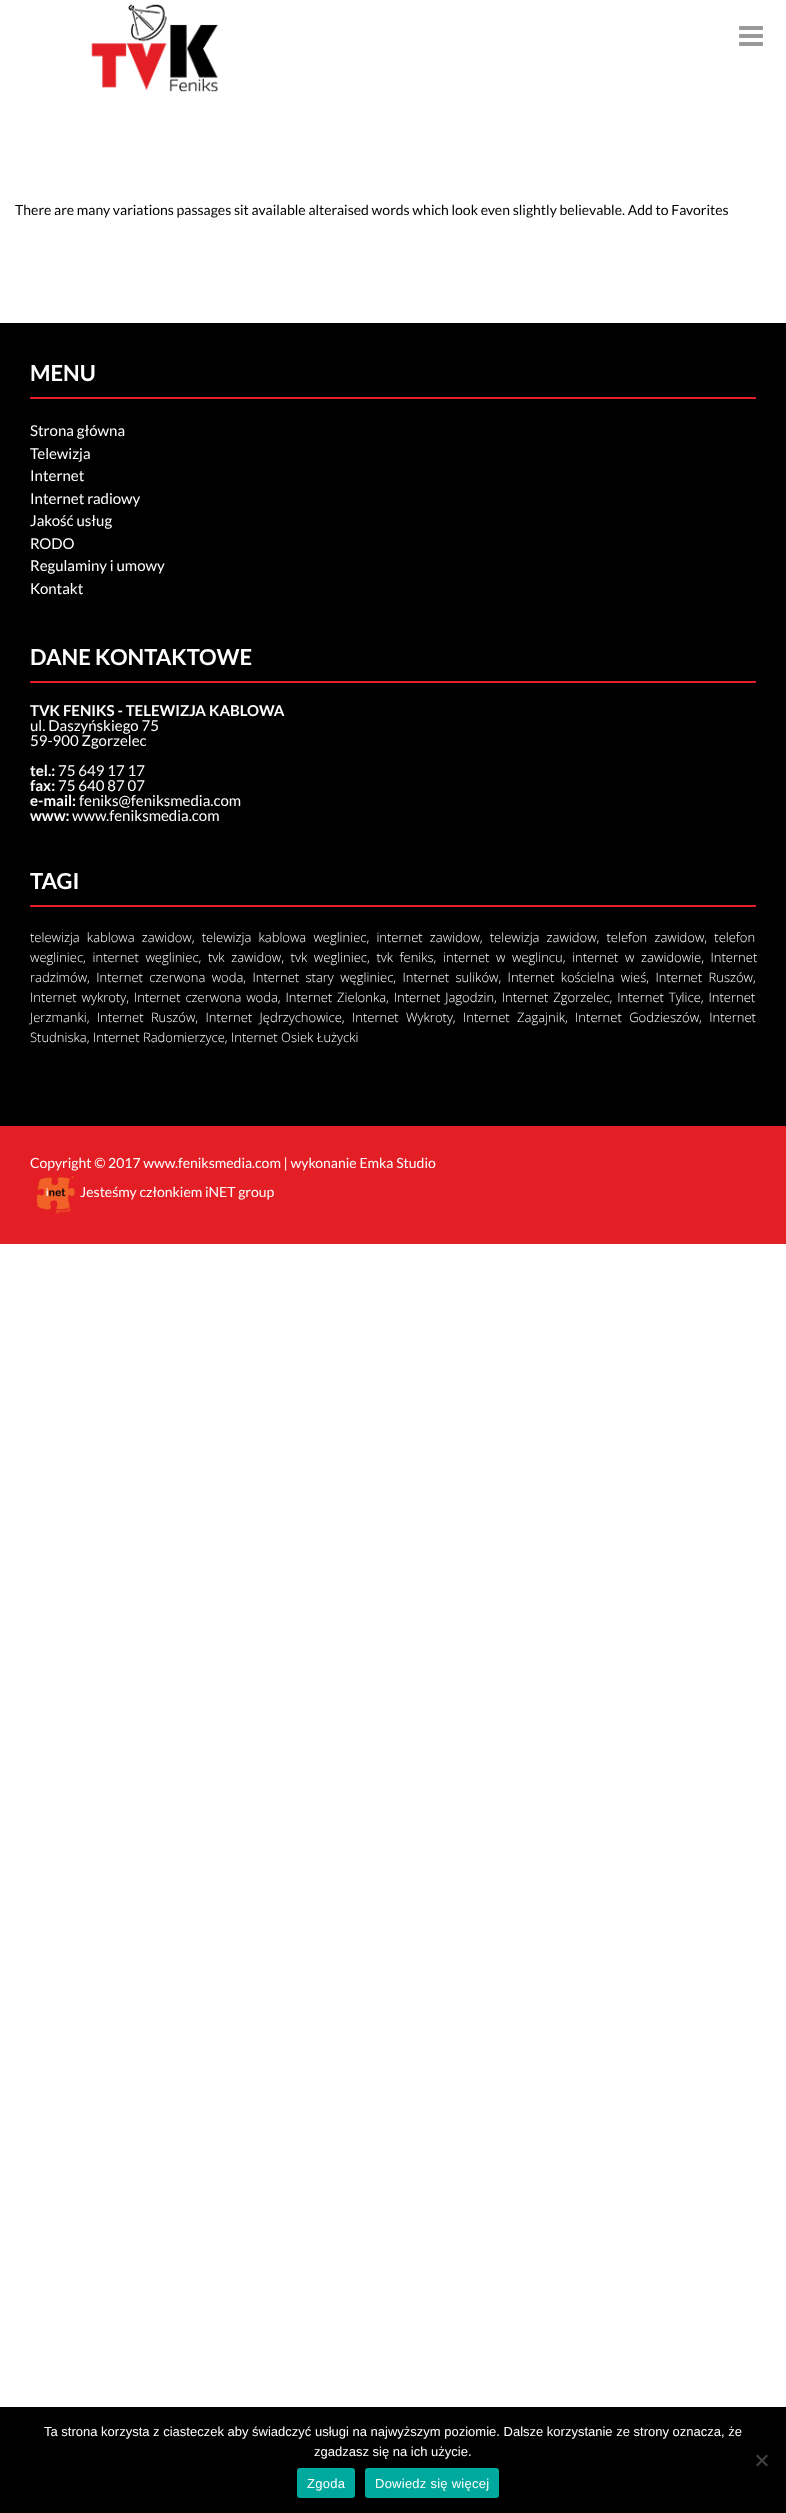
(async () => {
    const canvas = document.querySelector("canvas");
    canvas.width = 786;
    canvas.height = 2513;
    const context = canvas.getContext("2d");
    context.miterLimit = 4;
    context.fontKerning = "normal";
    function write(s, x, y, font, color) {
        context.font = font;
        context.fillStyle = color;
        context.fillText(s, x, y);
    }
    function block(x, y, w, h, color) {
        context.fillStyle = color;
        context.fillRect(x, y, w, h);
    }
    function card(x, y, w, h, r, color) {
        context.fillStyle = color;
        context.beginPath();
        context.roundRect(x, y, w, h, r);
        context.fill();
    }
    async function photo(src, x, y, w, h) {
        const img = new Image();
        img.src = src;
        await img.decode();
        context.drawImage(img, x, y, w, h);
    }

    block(0, 0, 786, 2513, "rgb(255, 255, 255)");
    await photo("media/1.png", 91, 4, 127, 88);
    await photo("media/2.png", 739, 26, 24, 20);
    write("There are many variations passages sit available alteraised words which look even slightly believable. Add to Favorites", 15, 215, "14px Lato", "rgb(0, 0, 0)");
    block(0, 323, 786, 803, "rgb(0, 0, 0)");
    block(30, 397, 726, 2, "rgb(227, 30, 36)");
    write("MENU", 30, 381, "bold 22px Lato", "rgb(255, 255, 255)");
    write("Strona główna", 30, 436, "15px Lato", "rgb(255, 255, 255)");
    write("Telewizja", 30, 459, "15px Lato", "rgb(255, 255, 255)");
    write("Internet", 30, 481, "15px Lato", "rgb(255, 255, 255)");
    write("Internet radiowy", 30, 504, "15px Lato", "rgb(255, 255, 255)");
    write("Jakość usług", 30, 526, "15px Lato", "rgb(255, 255, 255)");
    write("RODO", 30, 549, "15px Lato", "rgb(255, 255, 255)");
    write("Regulaminy i umowy", 30, 571, "15px Lato", "rgb(255, 255, 255)");
    write("Kontakt", 30, 594, "15px Lato", "rgb(255, 255, 255)");
    block(30, 681, 726, 2, "rgb(227, 30, 36)");
    write("DANE KONTAKTOWE", 30, 665, "bold 22px Lato", "rgb(255, 255, 255)");
    write("TVK FENIKS - TELEWIZJA KABLOWA", 30, 716, "bold 15px Lato", "rgb(255, 255, 255)");
    write("ul. Daszyńskiego 75", 30, 731, "15px Lato", "rgb(255, 255, 255)");
    write("59-900 Zgorzelec", 30, 746, "15px Lato", "rgb(255, 255, 255)");
    write("tel.:", 30, 776, "bold 15px Lato", "rgb(255, 255, 255)");
    write("75 649 17 17", 58, 776, "15px Lato", "rgb(255, 255, 255)");
    write("fax:", 30, 791, "bold 15px Lato", "rgb(255, 255, 255)");
    write("75 640 87 07", 58, 791, "15px Lato", "rgb(255, 255, 255)");
    write("e-mail:", 30, 806, "bold 15px Lato", "rgb(255, 255, 255)");
    write("feniks@feniksmedia.com", 79, 806, "15px Lato", "rgb(255, 255, 255)");
    write("www:", 30, 821, "bold 15px Lato", "rgb(255, 255, 255)");
    write("www.feniksmedia.com", 72, 821, "15px Lato", "rgb(255, 255, 255)");
    block(30, 905, 726, 2, "rgb(227, 30, 36)");
    write("TAGI", 30, 889, "bold 22px Lato", "rgb(255, 255, 255)");
    context.wordSpacing = "3.75px";
    write("telewizja kablowa zawidow, telewizja kablowa wegliniec, internet zawidow, telewizja zawidow, telefon zawidow, telefon", 30, 942, "300 13px Open Sans", "rgb(255, 255, 255)");
    context.wordSpacing = "3.25px";
    write("wegliniec, internet wegliniec, tvk zawidow, tvk wegliniec, tvk feniks, internet w weglincu, internet w zawidowie, Internet", 30, 962, "300 13px Open Sans", "rgb(255, 255, 255)");
    context.wordSpacing = "3px";
    write("radzimów, Internet czerwona woda, Internet stary węgliniec, Internet sulików, Internet kościelna wieś, Internet Ruszów,", 30, 982, "300 13px Open Sans", "rgb(255, 255, 255)");
    context.wordSpacing = "1.5px";
    write("Internet wykroty, Internet czerwona woda, Internet Zielonka, Internet Jagodzin, Internet Zgorzelec, Internet Tylice, Internet", 30, 1002, "300 13px Open Sans", "rgb(255, 255, 255)");
    context.wordSpacing = "4px";
    write("Jerzmanki, Internet Ruszów, Internet Jędrzychowice, Internet Wykroty, Internet Zagajnik, Internet Godzieszów, Internet", 30, 1022, "300 13px Open Sans", "rgb(255, 255, 255)");
    context.wordSpacing = "0px";
    write("Studniska, Internet Radomierzyce, Internet Osiek Łużycki", 30, 1042, "300 13px Open Sans", "rgb(255, 255, 255)");
    block(0, 1126, 786, 118, "rgb(227, 30, 36)");
    write("Copyright © 2017 www.feniksmedia.com | wykonanie Emka Studio", 30, 1168, "14px Lato", "rgb(255, 255, 255)");
    await photo("media/3.png", 36, 1176, 39, 38);
    write("Jesteśmy członkiem iNET group", 80, 1197, "14px Lato", "rgb(255, 255, 255)");
    block(0, 2407, 786, 106, "rgb(0, 0, 0)");
    write("Ta strona korzysta z ciasteczek aby świadczyć usługi na najwyższym poziomie. Dalsze korzystanie ze strony oznacza, że", 44, 2436, "13px Liberation Sans", "rgb(255, 255, 255)");
    write("zgadzasz się na ich użycie.", 314, 2456, "13px Liberation Sans", "rgb(255, 255, 255)");
    context.fillStyle = "rgb(64, 64, 64)";
    context.beginPath();
    context.moveTo(766.5, 2454.5);
    context.lineTo(768, 2456);
    context.lineTo(757.5, 2466.5);
    context.lineTo(756, 2465);
    context.closePath();
    context.fill();
    context.beginPath();
    context.moveTo(756, 2456);
    context.lineTo(757.5, 2454.5);
    context.lineTo(768, 2465);
    context.lineTo(766.5, 2466.5);
    context.closePath();
    context.fill();
    card(297, 2468, 58, 30, 3, "rgb(0, 169, 157)");
    context.letterSpacing = "0.25px";
    write("Zgoda", 307, 2488, "13px Liberation Sans", "rgb(255, 255, 255)");
    card(365, 2468, 134, 30, 3, "rgb(0, 169, 157)");
    write("Dowiedz się więcej", 375, 2488, "13px Liberation Sans", "rgb(255, 255, 255)");
})();
